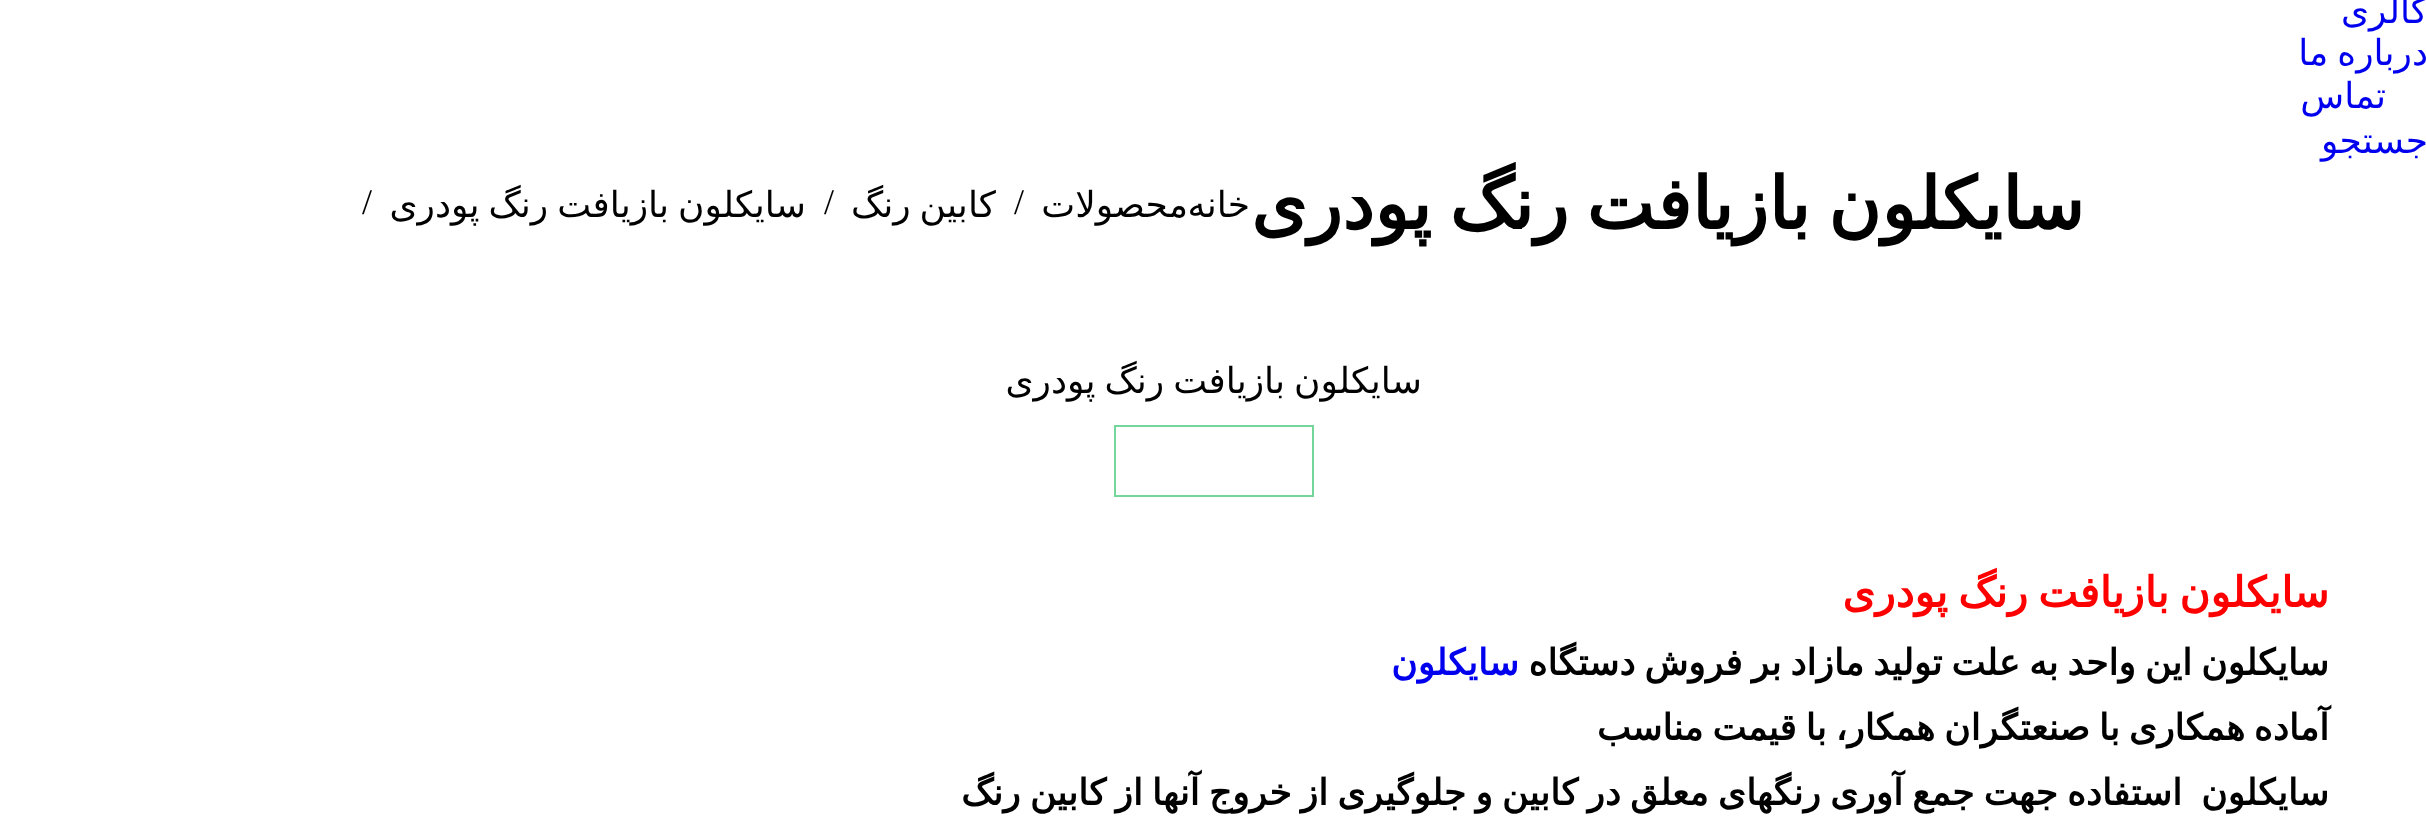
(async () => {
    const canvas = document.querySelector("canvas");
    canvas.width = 2426;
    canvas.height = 827;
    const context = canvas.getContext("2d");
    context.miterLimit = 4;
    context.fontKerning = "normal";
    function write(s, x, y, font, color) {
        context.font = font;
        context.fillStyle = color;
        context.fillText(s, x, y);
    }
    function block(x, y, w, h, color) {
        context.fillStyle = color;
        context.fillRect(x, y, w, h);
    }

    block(0, 0, 2426, 827, "rgb(255, 255, 255)");
    context.direction = "rtl";
    write("گالری", 2428, 23, "36px DejaVu Sans", "rgb(0, 0, 238)");
    context.wordSpacing = "-2.5px";
    write("درباره ما", 2428, 65, "36px DejaVu Sans", "rgb(0, 0, 238)");
    context.wordSpacing = "0px";
    write("تماس", 2386, 108, "36px DejaVu Sans", "rgb(0, 0, 238)");
    write("جستجو", 2428, 153, "36px DejaVu Sans", "rgb(0, 0, 238)");
    context.save();
    context.beginPath();
    context.rect(1251, 162, 833, 86);
    context.clip();
    context.wordSpacing = "-5px";
    write("سایکلون بازیافت رنگ پودری", 2084, 229, "bold 72px DejaVu Sans", "rgb(0, 0, 0)");
    context.restore();
    write("خانه", 1250, 217, "36px DejaVu Sans", "rgb(0, 0, 0)");
    write("محصولات", 1188, 217, "36px DejaVu Sans", "rgb(0, 0, 0)");
    context.direction = "ltr";
    write("/", 1014, 214, "36px Liberation Serif", "rgb(0, 0, 0)");
    context.wordSpacing = "-2.5px";
    context.direction = "rtl";
    write("کابین رنگ", 996, 217, "36px DejaVu Sans", "rgb(0, 0, 0)");
    context.wordSpacing = "0px";
    context.direction = "ltr";
    write("/", 824, 214, "36px Liberation Serif", "rgb(0, 0, 0)");
    context.wordSpacing = "-2.5px";
    context.direction = "rtl";
    write("سایکلون بازیافت رنگ پودری", 806, 217, "36px DejaVu Sans", "rgb(0, 0, 0)");
    context.wordSpacing = "0px";
    context.direction = "ltr";
    write("/", 362, 214, "36px Liberation Serif", "rgb(0, 0, 0)");
    context.wordSpacing = "-2.5px";
    context.direction = "rtl";
    write("سایکلون بازیافت رنگ پودری", 1422, 393, "36px DejaVu Sans", "rgb(0, 0, 0)");
    context.strokeStyle = "rgb(117, 214, 156)";
    context.lineWidth = 2;
    context.strokeRect(1115, 426, 198, 70);
    context.wordSpacing = "-3px";
    write("سایکلون بازیافت رنگ پودری", 2329, 607, "bold 42.1px DejaVu Sans", "rgb(255, 0, 0)");
    context.wordSpacing = "-2.5px";
    write("سایکلون این واحد به علت تولید مازاد بر فروش دستگاه", 2329, 675, "bold 36px DejaVu Sans", "rgb(0, 0, 0)");
    context.wordSpacing = "0px";
    write("سایکلون", 1519, 675, "bold 36px DejaVu Sans", "rgb(0, 0, 238)");
    context.wordSpacing = "-2.5px";
    write("آماده همکاری با صنعتگران همکار، با قیمت مناسب", 2329, 740, "bold 36px DejaVu Sans", "rgb(0, 0, 0)");
    context.wordSpacing = "0px";
    write("سایکلون", 2329, 805, "bold 36px DejaVu Sans", "rgb(0, 0, 0)");
    context.wordSpacing = "-2.25px";
    write("استفاده جهت جمع آوری رنگهای معلق در کابین و جلوگیری از خروج آنها از کابین رنگ", 2182, 805, "bold 36px DejaVu Sans", "rgb(0, 0, 0)");
})();
